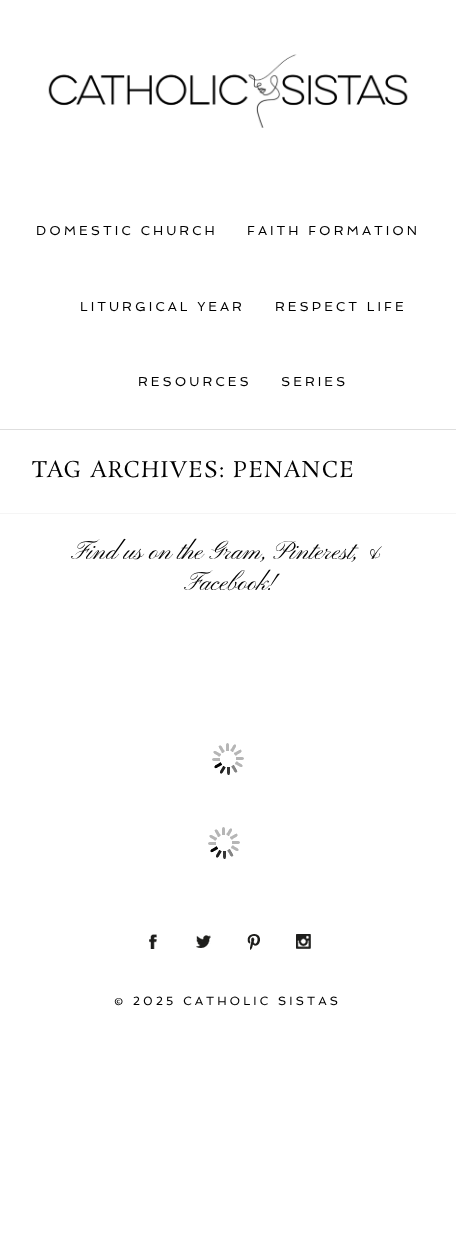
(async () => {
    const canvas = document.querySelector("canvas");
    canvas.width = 456;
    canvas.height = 1243;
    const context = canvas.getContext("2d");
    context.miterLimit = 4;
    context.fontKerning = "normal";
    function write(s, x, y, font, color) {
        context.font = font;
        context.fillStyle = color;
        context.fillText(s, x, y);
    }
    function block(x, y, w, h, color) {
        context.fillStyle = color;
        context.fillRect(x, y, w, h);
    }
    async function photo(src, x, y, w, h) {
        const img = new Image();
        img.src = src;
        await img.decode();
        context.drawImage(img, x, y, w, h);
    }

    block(0, 0, 456, 1243, "rgb(255, 255, 255)");
    await photo("media/1.png", 48, 54, 360, 74);
    block(0, 429, 456, 1, "rgb(222, 222, 222)");
    context.letterSpacing = "3px";
    write("DOMESTIC CHURCH", 36, 235, "13px Spinnaker", "rgb(0, 0, 0)");
    write("FAITH FORMATION", 247, 235, "13px Spinnaker", "rgb(0, 0, 0)");
    write("LITURGICAL YEAR", 80, 311, "13px Spinnaker", "rgb(0, 0, 0)");
    write("RESPECT LIFE", 275, 311, "13px Spinnaker", "rgb(0, 0, 0)");
    write("RESOURCES", 138, 386, "13px Spinnaker", "rgb(0, 0, 0)");
    write("SERIES", 281, 386, "13px Spinnaker", "rgb(0, 0, 0)");
    context.letterSpacing = "1.1px";
    write("TAG ARCHIVES: PENANCE", 32, 477, "22px Rosarivo", "rgb(0, 0, 0)");
    block(0, 513, 456, 1, "rgb(245, 245, 245)");
    context.letterSpacing = "0px";
    write("Find us on the Gram, Pinterest, &", 71, 559, "26px Pinyon Script", "rgb(0, 0, 0)");
    write("Facebook!", 184, 590, "26px Pinyon Script", "rgb(0, 0, 0)");
    await photo("media/2.png", 212, 743, 32, 32);
    await photo("media/2.png", 208, 827, 32, 32);
    await photo("media/3.png", 149, 934, 8, 15);
    await photo("media/4.png", 196, 935, 15, 13);
    await photo("media/5.png", 247, 934, 13, 16);
    await photo("media/6.png", 296, 934, 15, 15);
    context.letterSpacing = "3px";
    write("© 2025 CATHOLIC SISTAS", 114, 1005, "12px Spinnaker", "rgb(0, 0, 0)");
})();
